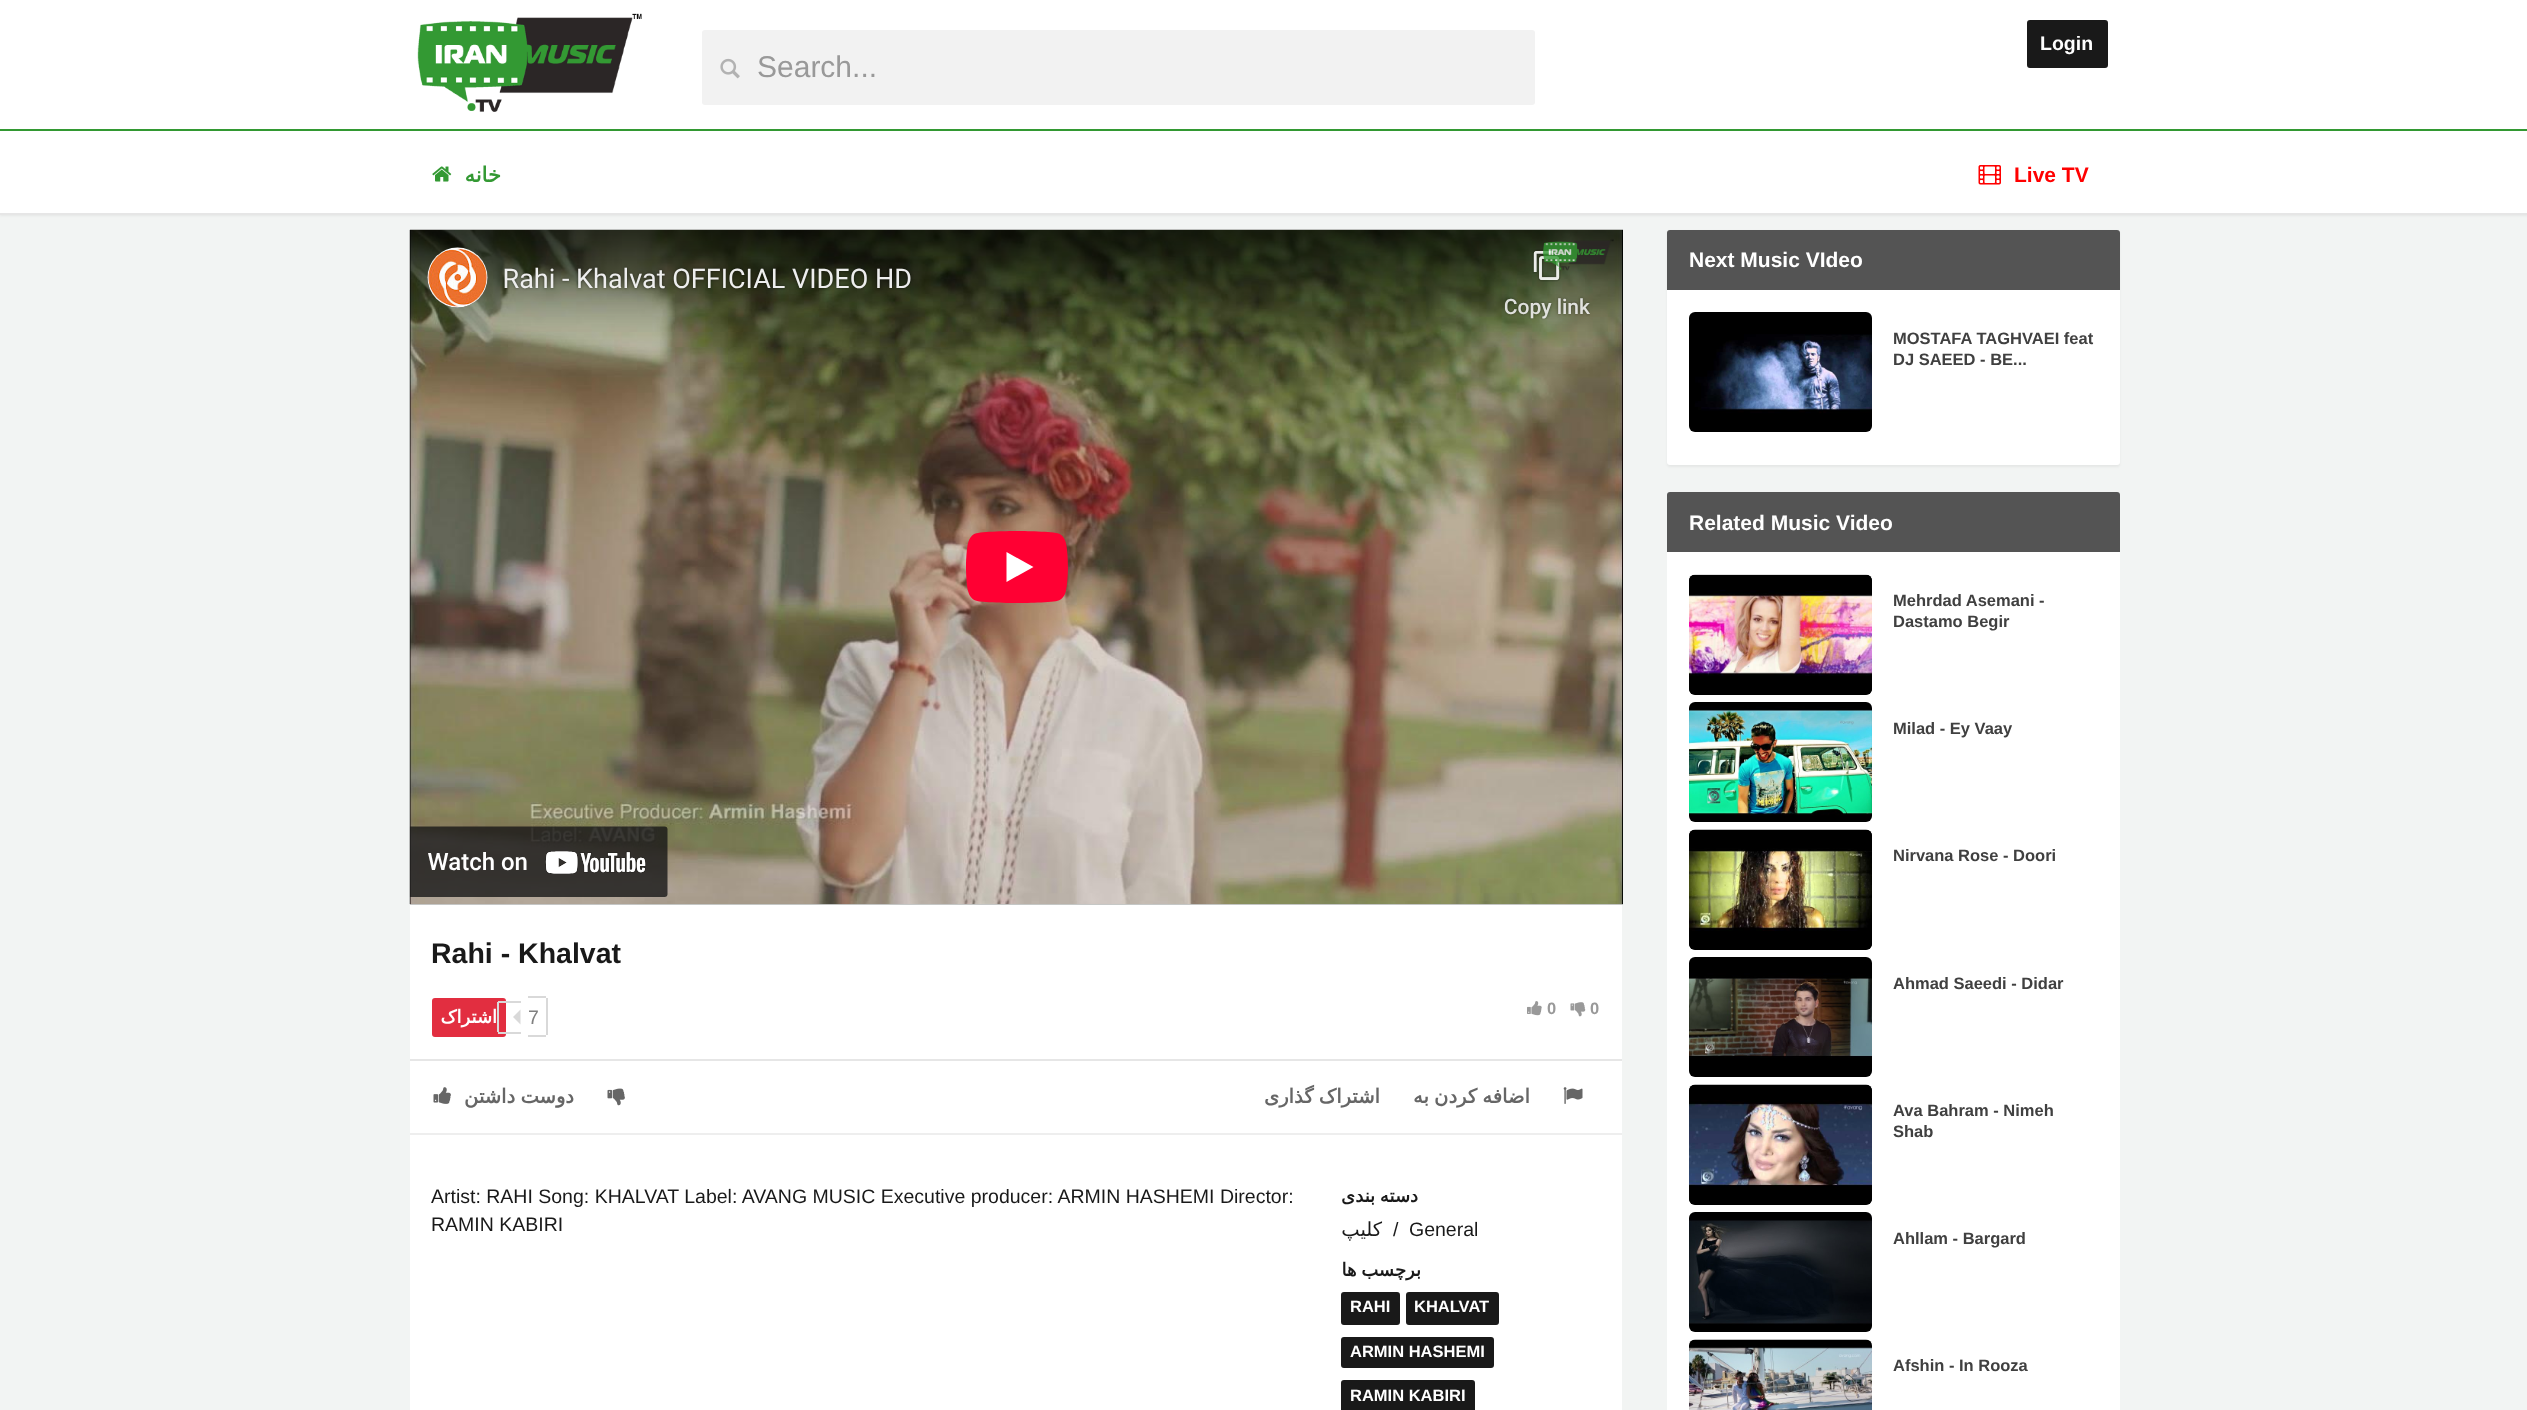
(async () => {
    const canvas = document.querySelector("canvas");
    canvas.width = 2527;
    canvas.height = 1410;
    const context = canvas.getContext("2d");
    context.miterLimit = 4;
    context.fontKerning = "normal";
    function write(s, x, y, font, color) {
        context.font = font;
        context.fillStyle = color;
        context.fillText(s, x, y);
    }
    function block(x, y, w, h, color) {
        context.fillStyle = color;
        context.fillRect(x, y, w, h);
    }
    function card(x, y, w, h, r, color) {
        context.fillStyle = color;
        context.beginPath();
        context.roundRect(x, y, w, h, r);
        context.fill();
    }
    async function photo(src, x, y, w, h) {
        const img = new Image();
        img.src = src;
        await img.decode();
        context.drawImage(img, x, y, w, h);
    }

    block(0, 0, 2527, 1410, "rgb(242, 244, 243)");
    block(0, 0, 2527, 129, "rgb(255, 255, 255)");
    block(0, 129, 2527, 2, "rgb(51, 153, 51)");
    await photo("media/1.png", 417, 13, 225, 99);
    context.fillStyle = "rgb(25, 25, 25)";
    context.beginPath();
    context.roundRect(2028, 21, 79, 46, 2);
    context.fill();
    context.strokeStyle = "rgb(25, 25, 25)";
    context.lineWidth = 2;
    context.stroke();
    write("Login", 2040, 50, "bold 19.5px Liberation Sans", "rgb(255, 255, 255)");
    context.fillStyle = "rgb(242, 242, 242)";
    context.beginPath();
    context.roundRect(702, 30, 56, 75, [3, 0, 0, 3]);
    context.fill();
    await photo("media/2.png", 720, 58, 20, 21);
    context.beginPath();
    context.roundRect(758, 30, 777, 75, [0, 3, 3, 0]);
    context.fill();
    write("Search...", 757, 77, "30px Liberation Sans", "rgb(153, 153, 153)");
    context.fillStyle = "rgba(0, 0, 0, 0.05)";
    context.filter = "blur(1px)";
    context.beginPath();
    context.rect(0, 132, 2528, 84);
    context.fill();
    context.filter = "none";
    block(0, 131, 2527, 82, "rgb(255, 255, 255)");
    block(0, 213, 2527, 2, "rgb(230, 230, 230)");
    await photo("media/3.png", 432, 166, 20, 16);
    context.direction = "rtl";
    write("خانه", 501, 182, "bold 21px DejaVu Sans", "rgb(51, 153, 51)");
    await photo("media/4.png", 1978, 165, 23, 20);
    context.direction = "ltr";
    write("Live TV", 2014, 182, "bold 21px Liberation Sans", "rgb(255, 0, 0)");
    await photo("media/5.png", 409, 229, 1214, 676);
    block(410, 905, 1212, 505, "rgb(255, 255, 255)");
    write("Rahi - Khalvat", 431, 963, "bold 28.5px Liberation Sans", "rgb(25, 25, 25)");
    context.fillStyle = "rgb(226, 46, 64)";
    context.beginPath();
    context.roundRect(433, 999, 72, 37, 2);
    context.fill();
    context.strokeStyle = "rgb(226, 46, 64)";
    context.stroke();
    context.direction = "rtl";
    write("اشتراک", 497, 1023, "bold 18px DejaVu Sans", "rgb(255, 255, 255)");
    block(498, 1001, 23, 2, "rgb(217, 217, 217)");
    block(498, 1032, 23, 2, "rgb(217, 217, 217)");
    block(497, 1002, 2, 30, "rgb(217, 217, 217)");
    block(528, 996, 18, 2, "rgb(217, 217, 217)");
    block(546, 998, 2, 37, "rgb(217, 217, 217)");
    block(528, 1035, 18, 2, "rgb(217, 217, 217)");
    context.beginPath();
    context.moveTo(520.5, 1009.5);
    context.lineTo(520.5, 1024.5);
    context.lineTo(513, 1017);
    context.closePath();
    context.fill();
    context.direction = "ltr";
    write("7", 528, 1024, "19.5px Liberation Sans", "rgb(128, 128, 128)");
    await photo("media/6.png", 1527, 1001, 15, 15);
    write("0", 1547, 1014, "bold 16.5px Liberation Sans", "rgb(153, 153, 153)");
    await photo("media/7.png", 1570, 1002, 16, 15);
    write("0", 1590, 1014, "bold 16.5px Liberation Sans", "rgb(153, 153, 153)");
    block(410, 1059, 1212, 2, "rgb(230, 230, 230)");
    await photo("media/8.png", 433, 1087, 18, 17);
    context.wordSpacing = "-1px";
    context.direction = "rtl";
    write("دوست داشتن", 574, 1103, "bold 19.5px DejaVu Sans", "rgb(102, 102, 102)");
    await photo("media/9.png", 607, 1088, 18, 18);
    write("اشتراک گذاری", 1380, 1103, "bold 19.5px DejaVu Sans", "rgb(102, 102, 102)");
    write("اضافه کردن به", 1530, 1103, "bold 19.5px DejaVu Sans", "rgb(102, 102, 102)");
    await photo("media/10.png", 1563, 1087, 20, 17);
    block(410, 1133, 1212, 2, "rgb(238, 238, 238)");
    context.wordSpacing = "0px";
    context.direction = "ltr";
    write("Artist: RAHI Song: KHALVAT Label: AVANG MUSIC Executive producer: ARMIN HASHEMI Director:", 431, 1203, "19.5px Liberation Sans", "rgb(25, 25, 25)");
    write("RAMIN KABIRI", 431, 1231, "19.5px Liberation Sans", "rgb(25, 25, 25)");
    context.wordSpacing = "-1px";
    context.direction = "rtl";
    write("دسته بندی", 1418, 1202, "bold 18px DejaVu Sans", "rgb(25, 25, 25)");
    context.wordSpacing = "0px";
    write("کلیپ", 1382, 1236, "19.5px DejaVu Sans", "rgb(25, 25, 25)");
    context.direction = "ltr";
    write("/", 1393, 1236, "19.5px Liberation Sans", "rgb(25, 25, 25)");
    write("General", 1409, 1236, "19.5px Liberation Sans", "rgb(25, 25, 25)");
    context.wordSpacing = "-1px";
    context.direction = "rtl";
    write("برچسب ها", 1421, 1276, "bold 18px DejaVu Sans", "rgb(25, 25, 25)");
    context.beginPath();
    context.roundRect(1342, 1293, 57, 31, 2);
    context.fill();
    context.strokeStyle = "rgb(25, 25, 25)";
    context.stroke();
    context.wordSpacing = "0px";
    context.direction = "ltr";
    write("RAHI", 1350, 1312, "bold 16.5px Liberation Sans", "rgb(255, 255, 255)");
    context.fillStyle = "rgb(25, 25, 25)";
    context.beginPath();
    context.roundRect(1407, 1293, 91, 31, 2);
    context.fill();
    context.stroke();
    write("KHALVAT", 1414, 1312, "bold 16.5px Liberation Sans", "rgb(255, 255, 255)");
    context.fillStyle = "rgb(25, 25, 25)";
    context.beginPath();
    context.roundRect(1342, 1338, 151, 29, 2);
    context.fill();
    context.stroke();
    write("ARMIN HASHEMI", 1350, 1357, "bold 16.5px Liberation Sans", "rgb(255, 255, 255)");
    context.fillStyle = "rgb(25, 25, 25)";
    context.beginPath();
    context.roundRect(1342, 1381, 132, 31, 2);
    context.fill();
    context.stroke();
    write("RAMIN KABIRI", 1350, 1401, "bold 16.5px Liberation Sans", "rgb(255, 255, 255)");
    context.fillStyle = "rgba(0, 0, 0, 0.05)";
    context.filter = "blur(1px)";
    context.beginPath();
    context.roundRect(1667, 231, 453, 236, 3);
    context.fill();
    context.filter = "none";
    card(1667, 230, 453, 235, 3, "rgb(255, 255, 255)");
    context.fillStyle = "rgb(84, 84, 84)";
    context.beginPath();
    context.roundRect(1667, 230, 453, 60, [3, 3, 0, 0]);
    context.fill();
    write("Next Music VIdeo", 1689, 267, "bold 21px Liberation Sans", "rgb(255, 255, 255)");
    await photo("media/11.png", 1689, 312, 183, 120);
    write("MOSTAFA TAGHVAEI feat", 1893, 344, "bold 16.5px Liberation Sans", "rgb(64, 64, 64)");
    write("DJ SAEED - BE...", 1893, 365, "bold 16.5px Liberation Sans", "rgb(64, 64, 64)");
    card(1667, 492, 453, 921, 3, "rgb(255, 255, 255)");
    context.fillStyle = "rgb(84, 84, 84)";
    context.beginPath();
    context.roundRect(1667, 492, 453, 60, [3, 3, 0, 0]);
    context.fill();
    write("Related Music Video", 1689, 530, "bold 21px Liberation Sans", "rgb(255, 255, 255)");
    card(1689, 575, 183, 120, 6, "rgb(0, 0, 0)");
    await photo("media/12.png", 1689, 574, 183, 121);
    write("Mehrdad Asemani -", 1893, 606, "bold 16.5px Liberation Sans", "rgb(64, 64, 64)");
    write("Dastamo Begir", 1893, 627, "bold 16.5px Liberation Sans", "rgb(64, 64, 64)");
    await photo("media/13.png", 1689, 702, 183, 120);
    write("Milad - Ey Vaay", 1893, 734, "bold 16.5px Liberation Sans", "rgb(64, 64, 64)");
    card(1689, 830, 183, 120, 6, "rgb(0, 0, 0)");
    await photo("media/14.png", 1689, 829, 183, 121);
    write("Nirvana Rose - Doori", 1893, 861, "bold 16.5px Liberation Sans", "rgb(64, 64, 64)");
    await photo("media/15.png", 1689, 957, 183, 120);
    write("Ahmad Saeedi - Didar", 1893, 989, "bold 16.5px Liberation Sans", "rgb(64, 64, 64)");
    card(1689, 1085, 183, 120, 6, "rgb(0, 0, 0)");
    await photo("media/16.png", 1689, 1084, 183, 121);
    write("Ava Bahram - Nimeh", 1893, 1116, "bold 16.5px Liberation Sans", "rgb(64, 64, 64)");
    write("Shab", 1893, 1137, "bold 16.5px Liberation Sans", "rgb(64, 64, 64)");
    await photo("media/17.png", 1689, 1212, 183, 120);
    write("Ahllam - Bargard", 1893, 1244, "bold 16.5px Liberation Sans", "rgb(64, 64, 64)");
    await photo("media/18.png", 1689, 1339, 183, 71);
    write("Afshin - In Rooza", 1893, 1371, "bold 16.5px Liberation Sans", "rgb(64, 64, 64)");
})();
